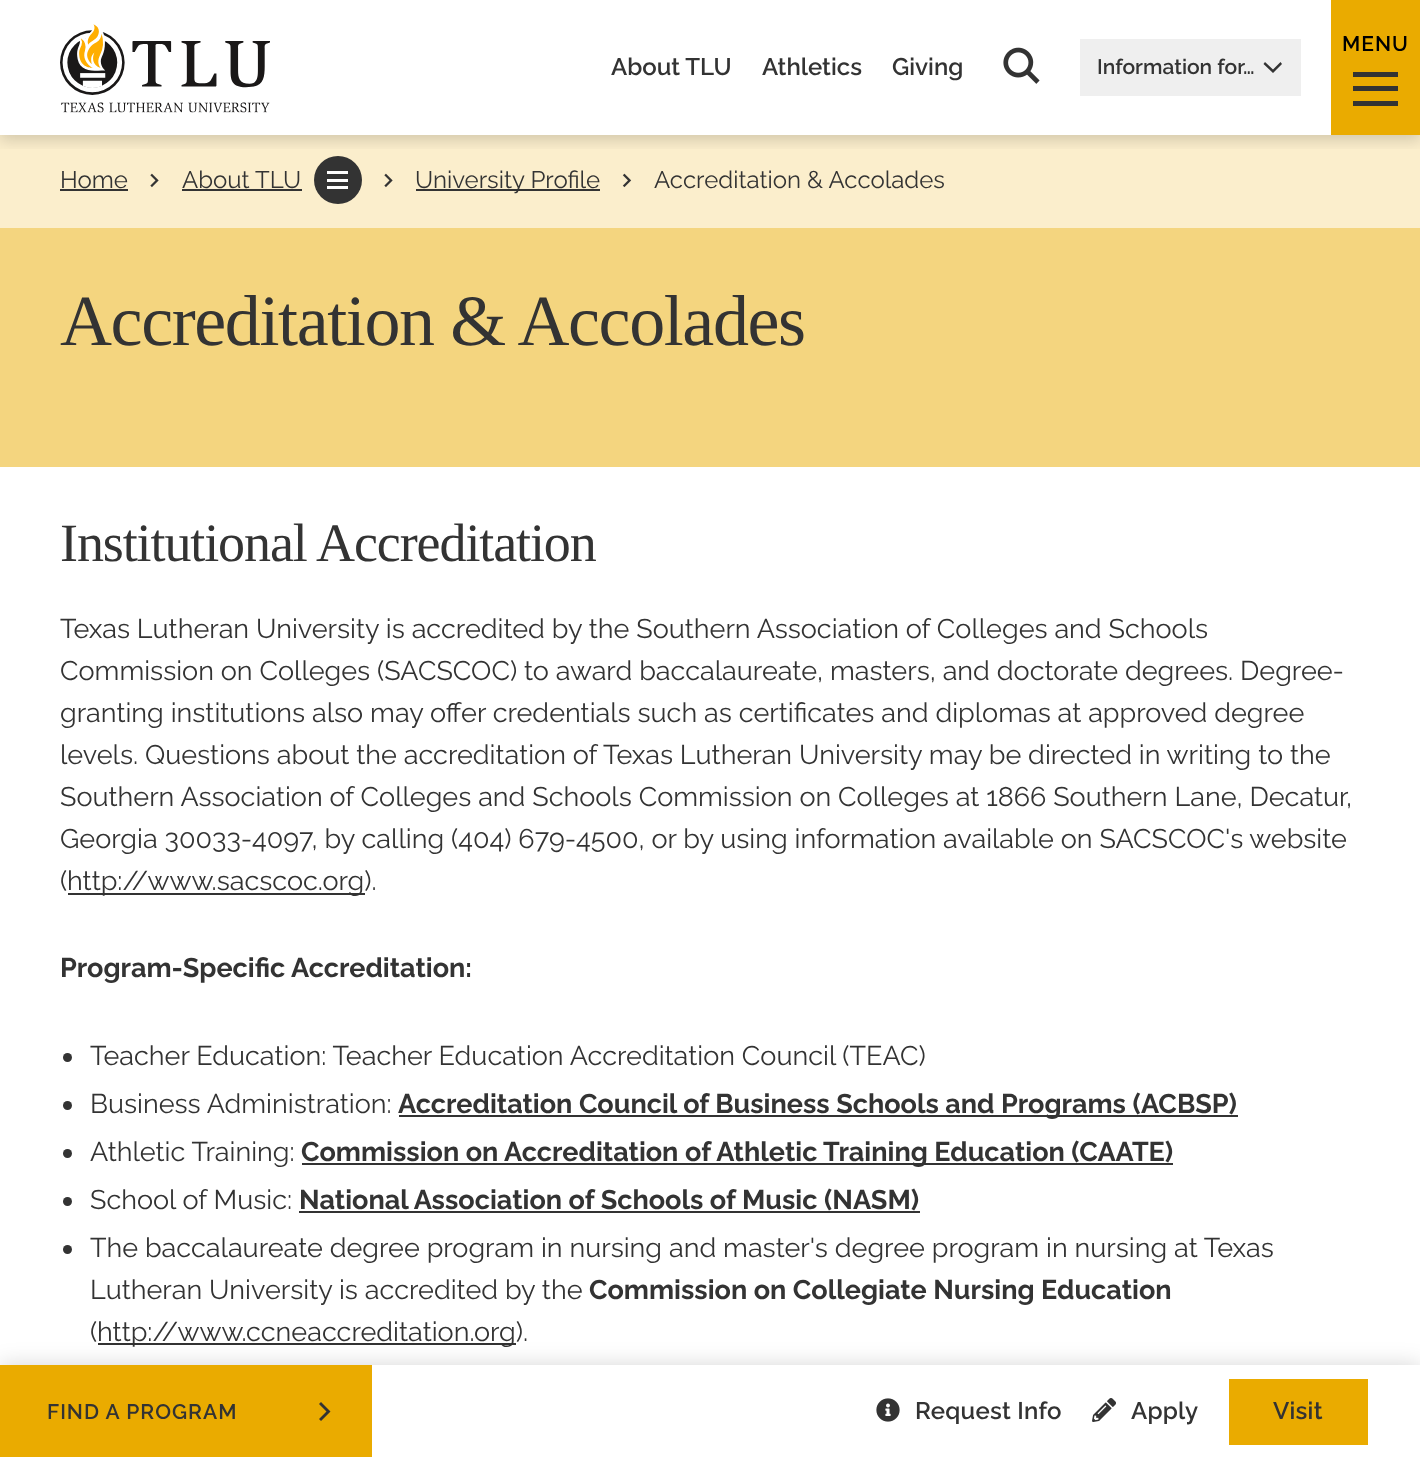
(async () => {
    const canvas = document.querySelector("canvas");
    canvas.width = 1420;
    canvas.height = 1457;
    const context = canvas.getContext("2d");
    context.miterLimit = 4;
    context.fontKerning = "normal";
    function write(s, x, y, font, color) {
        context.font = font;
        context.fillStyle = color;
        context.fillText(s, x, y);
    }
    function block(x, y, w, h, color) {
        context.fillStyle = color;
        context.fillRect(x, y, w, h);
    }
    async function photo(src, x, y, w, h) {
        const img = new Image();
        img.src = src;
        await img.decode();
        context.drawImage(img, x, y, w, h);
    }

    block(0, 0, 1420, 1457, "rgb(255, 255, 255)");
    block(0, 135, 1420, 93, "rgb(251, 238, 204)");
    context.fillStyle = "rgb(51, 51, 51)";
    context.beginPath();
    context.arc(338, 180, 24, 0, Math.PI * 2);
    context.fill();
    context.save();
    context.beginPath();
    context.rect(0, 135, 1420, 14);
    context.clip();
    context.fillStyle = "rgba(0, 0, 0, 0.16)";
    context.filter = "blur(7.5px)";
    context.beginPath();
    context.rect(0, 5, 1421, 135);
    context.fill();
    context.filter = "none";
    context.restore();
    await photo("media/1.png", 60, 24, 210, 89);
    block(1331, 0, 89, 135, "rgb(234, 171, 0)");
    context.letterSpacing = "1px";
    write("MENU", 1342, 51, "600 21px Raleway", "rgb(0, 0, 0)");
    block(1353, 72, 45, 5, "rgb(51, 51, 51)");
    block(1353, 86, 45, 5, "rgb(51, 51, 51)");
    block(1353, 101, 45, 5, "rgb(51, 51, 51)");
    context.letterSpacing = "0px";
    write("About TLU", 611, 75, "600 24px Raleway", "rgb(51, 51, 51)");
    write("Athletics", 762, 75, "600 24px Raleway", "rgb(51, 51, 51)");
    write("Giving", 892, 75, "600 24px Raleway", "rgb(51, 51, 51)");
    await photo("media/2.png", 1003, 47, 37, 37);
    block(1080, 39, 221, 57, "rgb(239, 239, 239)");
    write("Information for…", 1097, 74, "600 21px Raleway", "rgb(51, 51, 51)");
    context.beginPath();
    context.moveTo(1265, 62);
    context.lineTo(1273, 69.5);
    context.lineTo(1280.5, 62);
    context.lineTo(1282, 64);
    context.lineTo(1273, 73);
    context.lineTo(1263.5, 64);
    context.closePath();
    context.fill();
    write("Home", 60, 188, "24px Raleway", "rgb(51, 51, 51)");
    block(60, 189, 68, 2, "rgb(51, 51, 51)");
    await photo("media/3.png", 150, 173, 9, 15);
    write("About TLU", 182, 188, "24px Raleway", "rgb(51, 51, 51)");
    block(182, 189, 120, 2, "rgb(51, 51, 51)");
    block(327, 171, 21, 3, "rgb(255, 255, 255)");
    block(327, 179, 21, 3, "rgb(255, 255, 255)");
    block(327, 186, 21, 3, "rgb(255, 255, 255)");
    await photo("media/3.png", 384, 173, 9, 15);
    block(416, 189, 184, 2, "rgb(51, 51, 51)");
    write("University Profile", 415, 188, "24px Raleway", "rgb(51, 51, 51)");
    await photo("media/4.png", 622, 173, 10, 15);
    write("Accreditation & Accolades", 654, 188, "24px Raleway", "rgb(51, 51, 51)");
    block(0, 228, 1420, 239, "rgb(244, 213, 127)");
    context.letterSpacing = "-1.4px";
    write("Accreditation & Accolades", 60, 345, "72px Liberation Serif", "rgb(51, 51, 51)");
    context.letterSpacing = "-1.1px";
    write("Institutional Accreditation", 60, 561, "54px Liberation Serif", "rgb(51, 51, 51)");
    context.letterSpacing = "0px";
    write("Texas Lutheran University is accredited by the Southern Association of Colleges and Schools", 60, 638, "27px Raleway", "rgb(51, 51, 51)");
    write("Commission on Colleges (SACSCOC) to award baccalaureate, masters, and doctorate degrees. Degree-", 60, 680, "27px Raleway", "rgb(51, 51, 51)");
    write("granting institutions also may offer credentials such as certificates and diplomas at approved degree", 60, 722, "27px Raleway", "rgb(51, 51, 51)");
    write("levels. Questions about the accreditation of Texas Lutheran University may be directed in writing to the", 60, 764, "27px Raleway", "rgb(51, 51, 51)");
    write("Southern Association of Colleges and Schools Commission on Colleges at 1866 Southern Lane, Decatur,", 60, 806, "27px Raleway", "rgb(51, 51, 51)");
    write("Georgia 30033-4097, by calling (404) 679-4500, or by using information available on SACSCOC's website", 60, 848, "27px Raleway", "rgb(51, 51, 51)");
    write("(", 60, 890, "27px Raleway", "rgb(51, 51, 51)");
    block(68, 893, 297, 2, "rgb(51, 51, 51)");
    write("http://www.sacscoc.org).", 67, 890, "27px Raleway", "rgb(51, 51, 51)");
    write("Program-Specific Accreditation:", 60, 977, "bold 27px Raleway", "rgb(51, 51, 51)");
    context.beginPath();
    context.arc(67.5, 1057.5, 4.5, 0, Math.PI * 2);
    context.fill();
    write("Teacher Education: Teacher Education Accreditation Council (TEAC)", 90, 1065, "27px Raleway", "rgb(51, 51, 51)");
    context.beginPath();
    context.arc(67.5, 1105.5, 4.5, 0, Math.PI * 2);
    context.fill();
    write("Business Administration:", 90, 1113, "27px Raleway", "rgb(51, 51, 51)");
    block(399, 1115, 839, 2, "rgb(51, 51, 51)");
    write("Accreditation Council of Business Schools and Programs (ACBSP)", 398, 1113, "bold 27px Raleway", "rgb(51, 51, 51)");
    context.beginPath();
    context.arc(67.5, 1153.5, 4.5, 0, Math.PI * 2);
    context.fill();
    write("Athletic Training:", 90, 1161, "27px Raleway", "rgb(51, 51, 51)");
    block(302, 1163, 871, 2, "rgb(51, 51, 51)");
    write("Commission on Accreditation of Athletic Training Education (CAATE)", 301, 1161, "bold 27px Raleway", "rgb(51, 51, 51)");
    context.beginPath();
    context.arc(67.5, 1201.5, 4.5, 0, Math.PI * 2);
    context.fill();
    write("School of Music:", 90, 1209, "27px Raleway", "rgb(51, 51, 51)");
    write("National Association of Schools of Music (NASM)", 299, 1209, "bold 27px Raleway", "rgb(51, 51, 51)");
    block(299, 1211, 621, 2, "rgb(51, 51, 51)");
    context.beginPath();
    context.arc(67.5, 1249.5, 4.5, 0, Math.PI * 2);
    context.fill();
    write("The baccalaureate degree program in nursing and master's degree program in nursing at Texas", 90, 1257, "27px Raleway", "rgb(51, 51, 51)");
    write("Lutheran University is accredited by the", 90, 1299, "27px Raleway", "rgb(51, 51, 51)");
    write("Commission on Collegiate Nursing Education", 589, 1299, "bold 27px Raleway", "rgb(51, 51, 51)");
    write("(", 90, 1341, "27px Raleway", "rgb(51, 51, 51)");
    block(98, 1343, 418, 2, "rgb(51, 51, 51)");
    write("http://www.ccneaccreditation.org).", 97, 1341, "27px Raleway", "rgb(51, 51, 51)");
    context.fillStyle = "rgba(0, 0, 0, 0.16)";
    context.filter = "blur(11px)";
    context.beginPath();
    context.rect(0, 1365, 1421, 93);
    context.fill();
    context.filter = "none";
    block(372, 1365, 1048, 92, "rgb(255, 255, 255)");
    block(0, 1365, 372, 92, "rgb(234, 171, 0)");
    context.letterSpacing = "1px";
    write("FIND A PROGRAM", 47, 1419, "600 21px Raleway", "rgb(51, 51, 51)");
    context.beginPath();
    context.moveTo(319, 1404);
    context.lineTo(321, 1402);
    context.lineTo(330.5, 1411.5);
    context.lineTo(321, 1421);
    context.lineTo(319, 1419);
    context.lineTo(326.5, 1411.5);
    context.closePath();
    context.fill();
    await photo("media/5.png", 876, 1398, 24, 24);
    context.letterSpacing = "0.25px";
    write("Request Info", 915, 1419, "600 24px Raleway", "rgb(51, 51, 51)");
    await photo("media/6.png", 1092, 1398, 24, 24);
    write("Apply", 1131, 1419, "600 24px Raleway", "rgb(51, 51, 51)");
    block(1229, 1379, 139, 66, "rgb(234, 171, 0)");
    write("Visit", 1273, 1419, "600 24px Raleway", "rgb(51, 51, 51)");
})();
